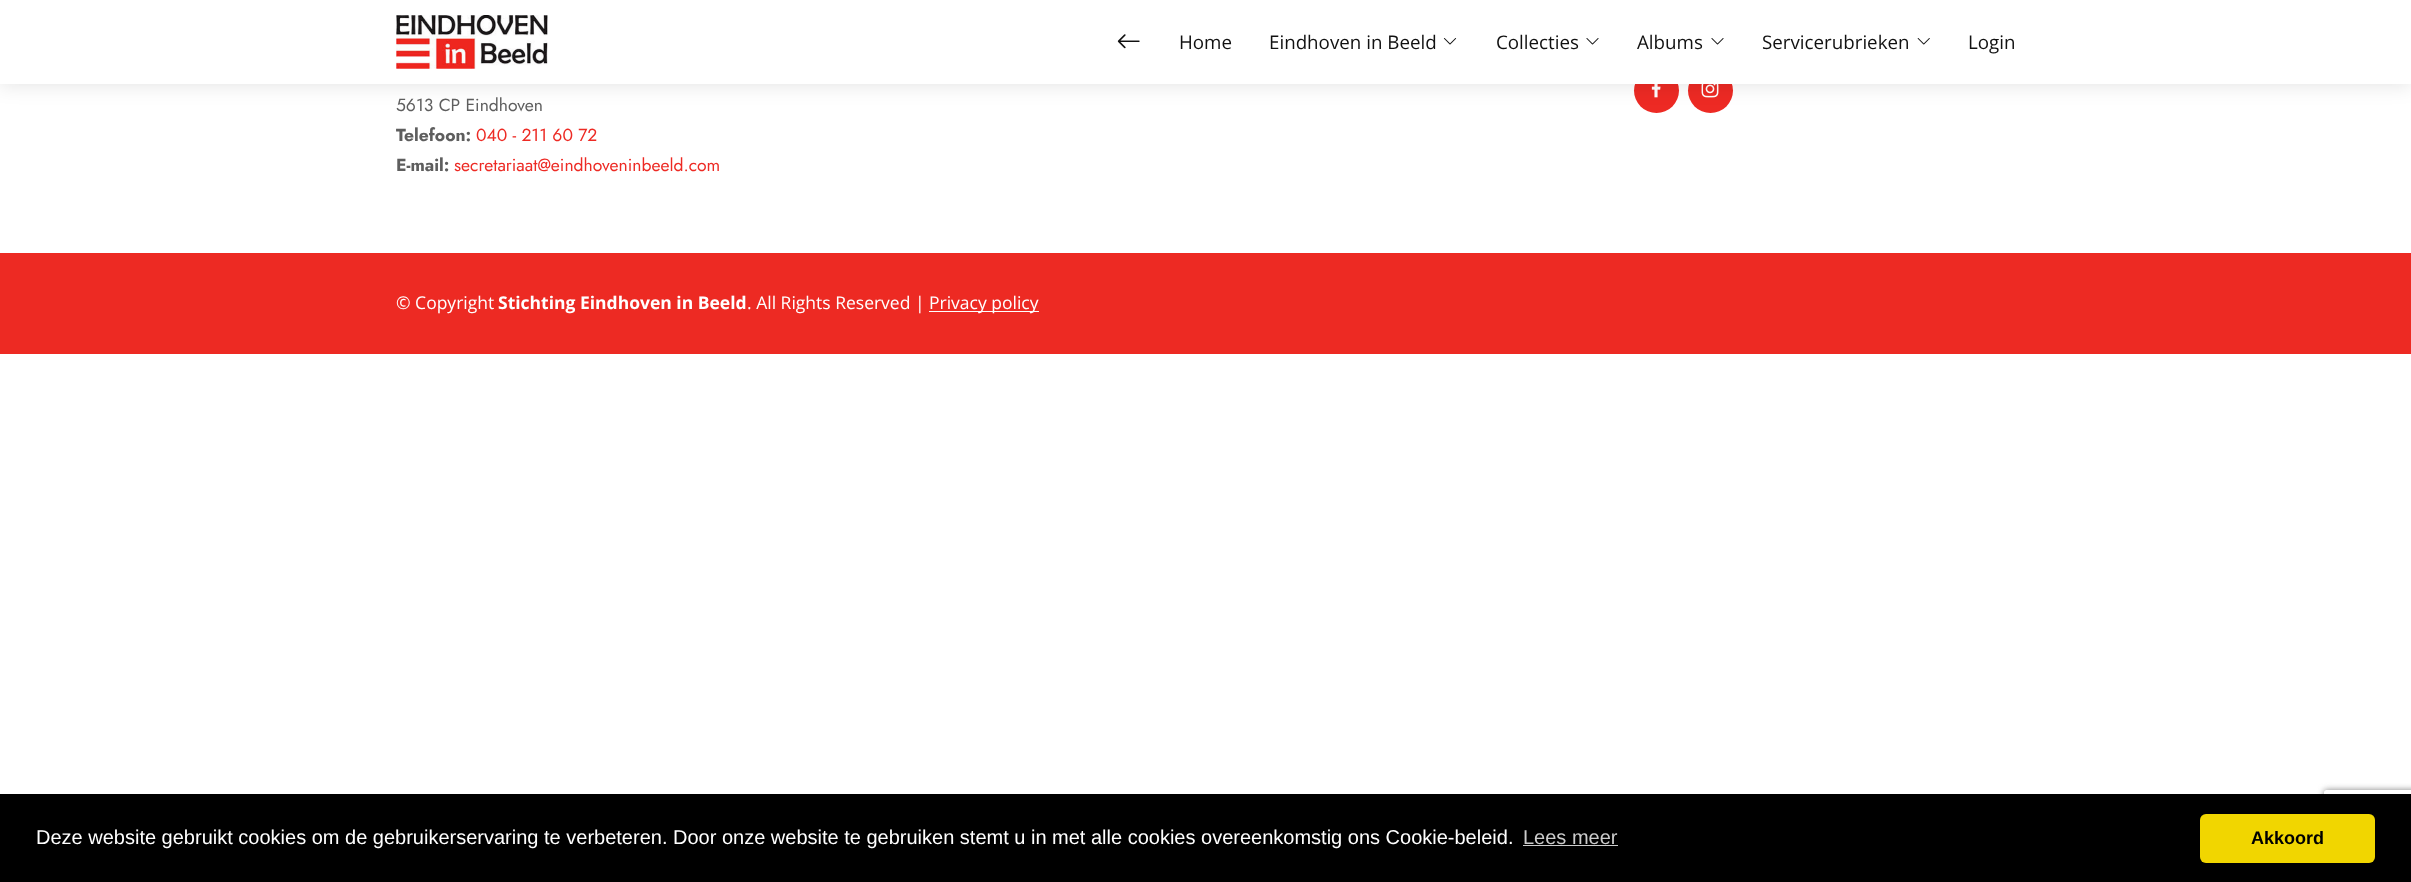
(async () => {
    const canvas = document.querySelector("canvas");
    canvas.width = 2411;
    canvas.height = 882;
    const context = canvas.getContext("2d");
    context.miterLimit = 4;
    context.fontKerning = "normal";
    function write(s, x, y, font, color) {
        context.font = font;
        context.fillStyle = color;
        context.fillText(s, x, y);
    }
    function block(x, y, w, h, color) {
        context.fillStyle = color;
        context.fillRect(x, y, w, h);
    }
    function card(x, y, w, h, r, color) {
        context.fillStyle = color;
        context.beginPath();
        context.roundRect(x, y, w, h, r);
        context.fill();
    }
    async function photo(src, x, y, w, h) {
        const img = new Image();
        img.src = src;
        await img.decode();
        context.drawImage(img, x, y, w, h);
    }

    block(0, 0, 2411, 882, "rgb(255, 255, 255)");
    context.fillStyle = "rgb(237, 42, 36)";
    context.beginPath();
    context.arc(1656.5, 90.5, 22.5, 0, Math.PI * 2);
    context.fill();
    await photo("media/6.png", 1651, 84, 10, 14);
    context.beginPath();
    context.arc(1710.5, 90.5, 22.5, 0, Math.PI * 2);
    context.fill();
    await photo("media/7.png", 1701, 84, 18, 14);
    context.fillStyle = "rgba(0, 0, 0, 0.1)";
    context.filter = "blur(9.5px)";
    context.beginPath();
    context.rect(0, 3, 2411, 83);
    context.fill();
    context.filter = "none";
    block(0, 0, 2411, 84, "rgb(255, 255, 255)");
    await photo("media/1.png", 396, 15, 152, 54);
    await photo("media/2.png", 1117, 34, 23, 15);
    write("Home", 1179, 49, "18.75px Open Sans", "rgb(17, 17, 17)");
    write("Eindhoven in Beeld", 1269, 49, "18.75px Open Sans", "rgb(17, 17, 17)");
    await photo("media/3.png", 1443, 38, 14, 7);
    write("Collecties", 1496, 49, "18.75px Open Sans", "rgb(17, 17, 17)");
    await photo("media/4.png", 1586, 38, 13, 7);
    write("Albums", 1637, 49, "18.75px Open Sans", "rgb(17, 17, 17)");
    await photo("media/4.png", 1711, 38, 13, 7);
    write("Servicerubrieken", 1762, 49, "18.75px Open Sans", "rgb(17, 17, 17)");
    await photo("media/5.png", 1917, 38, 13, 7);
    write("Login", 1968, 49, "18.75px Open Sans", "rgb(17, 17, 17)");
    block(0, 253, 2411, 101, "rgb(237, 42, 35)");
    write("5613 CP Eindhoven", 396, 111, "17.5px Jost", "rgb(94, 94, 94)");
    write("Telefoon:", 396, 141, "bold 17.5px Jost", "rgb(94, 94, 94)");
    write("040 - 211 60 72", 476, 141, "17.5px Jost", "rgb(237, 42, 36)");
    write("E-mail:", 396, 171, "bold 17.5px Jost", "rgb(94, 94, 94)");
    write("secretariaat@eindhoveninbeeld.com", 454, 171, "17.5px Jost", "rgb(237, 42, 36)");
    write("© Copyright", 396, 309, "17.5px Open Sans", "rgb(255, 255, 255)");
    write("Stichting Eindhoven in Beeld", 498, 309, "bold 17.5px Open Sans", "rgb(255, 255, 255)");
    write(". All Rights Reserved |", 747, 309, "17.5px Open Sans", "rgb(255, 255, 255)");
    block(929, 311, 110, 1, "rgb(255, 255, 255)");
    write("Privacy policy", 929, 309, "17.5px Open Sans", "rgb(255, 255, 255)");
    context.save();
    context.beginPath();
    context.moveTo(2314, 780);
    context.lineTo(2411, 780);
    context.lineTo(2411, 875);
    context.lineTo(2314, 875);
    context.closePath();
    context.moveTo(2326.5, 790);
    context.lineTo(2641.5, 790);
    context.bezierCurveTo(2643, 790, 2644, 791, 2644, 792.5);
    context.lineTo(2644, 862.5);
    context.bezierCurveTo(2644, 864, 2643, 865, 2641.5, 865);
    context.lineTo(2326.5, 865);
    context.bezierCurveTo(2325, 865, 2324, 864, 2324, 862.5);
    context.lineTo(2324, 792.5);
    context.bezierCurveTo(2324, 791, 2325, 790, 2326.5, 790);
    context.closePath();
    context.clip("evenodd");
    context.fillStyle = "rgb(128, 128, 128)";
    context.filter = "blur(3px)";
    context.beginPath();
    context.roundRect(2324, 790, 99, 75, 2.5);
    context.fill();
    context.filter = "none";
    context.restore();
    block(0, 794, 2411, 88, "rgb(0, 0, 0)");
    write("Deze website gebruikt cookies om de gebruikerservaring te verbeteren. Door onze website te gebruiken stemt u in met alle cookies overeenkomstig ons Cookie-beleid.", 36, 844, "20px Liberation Sans", "rgb(255, 255, 255)");
    write("Lees meer", 1523, 844, "20px Liberation Sans", "rgb(204, 204, 204)");
    block(1523, 845, 95, 1, "rgb(204, 204, 204)");
    card(2200, 814, 175, 49, 6, "rgb(241, 214, 0)");
    write("Akkoord", 2251, 844, "bold 18px Liberation Sans", "rgb(0, 0, 0)");
})();
